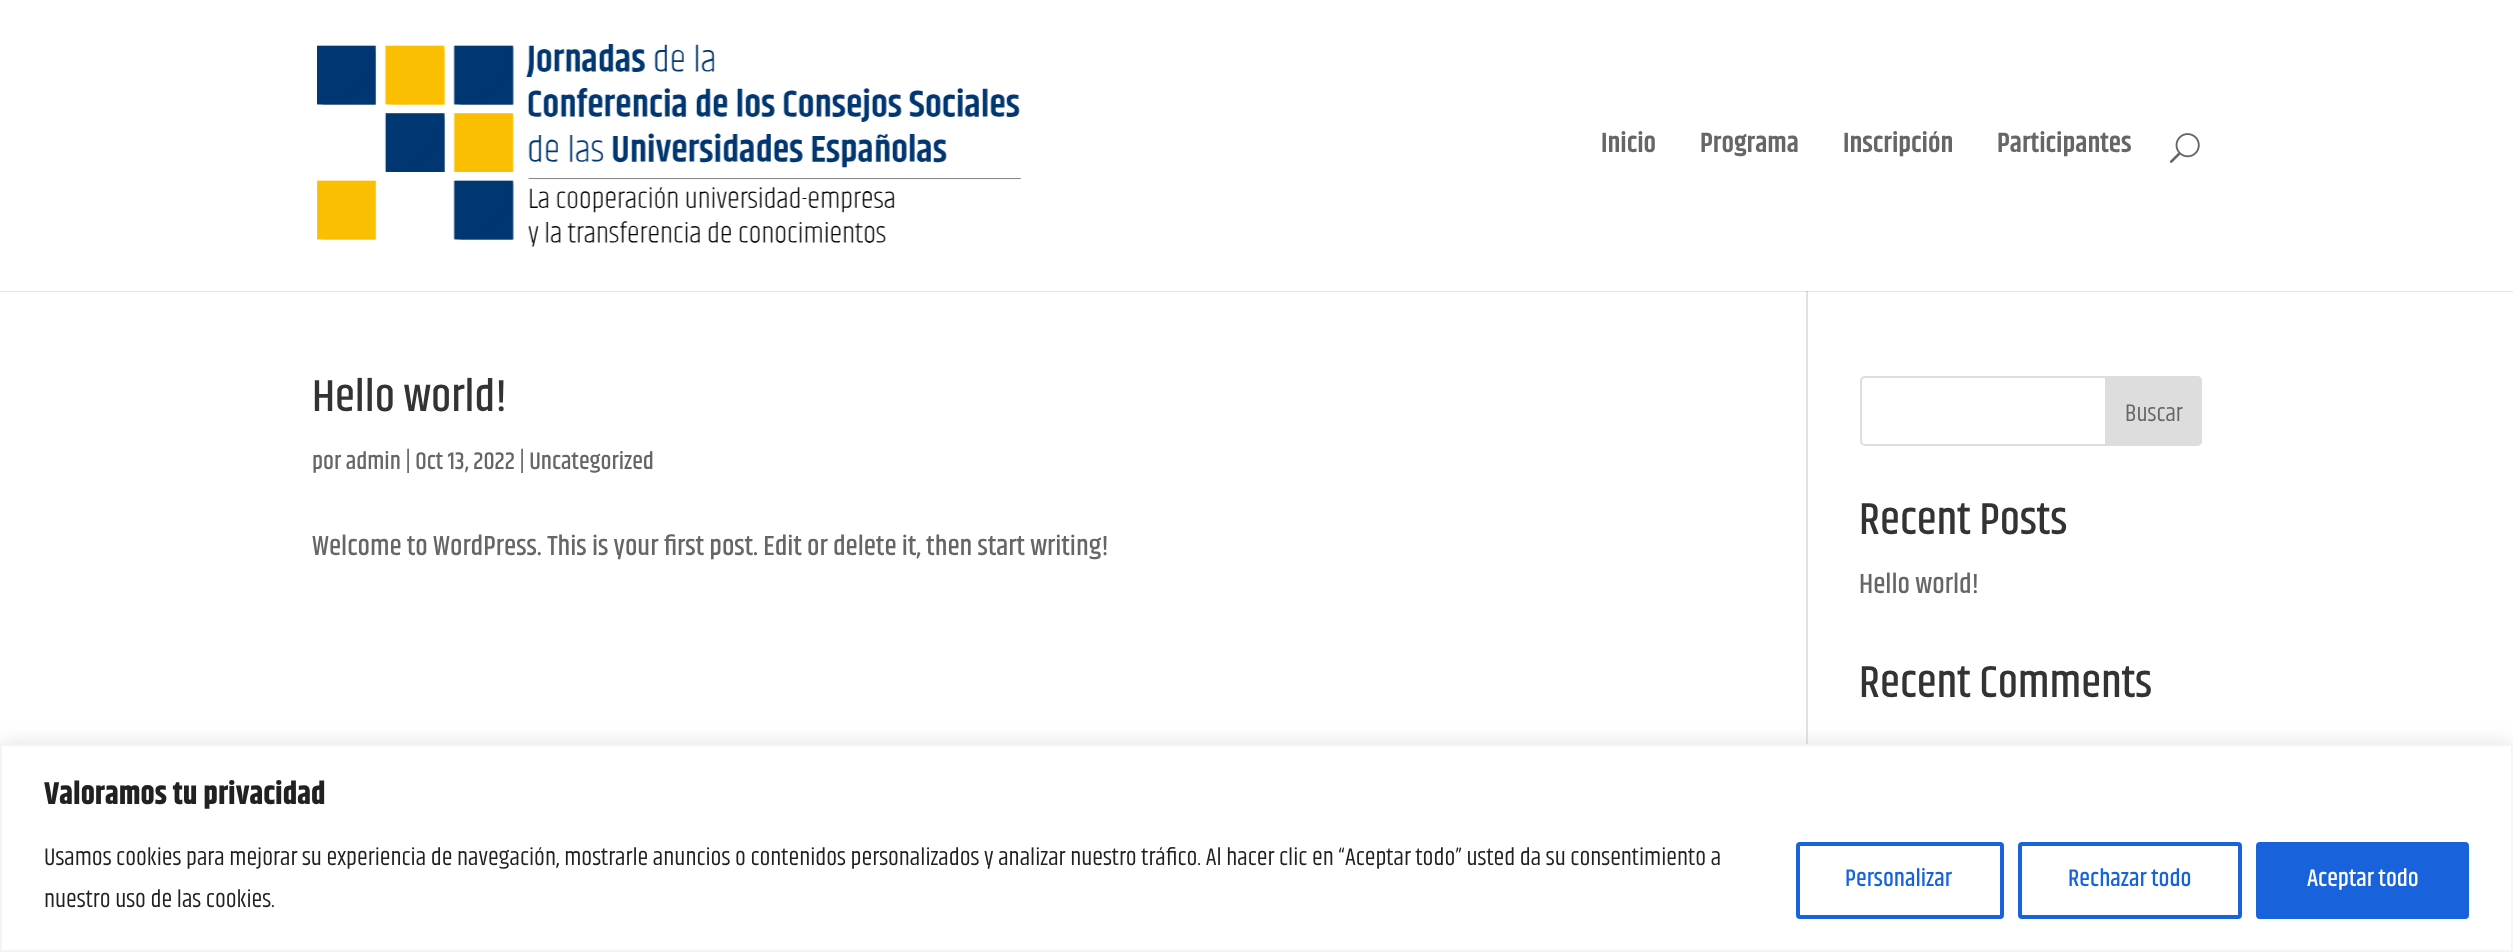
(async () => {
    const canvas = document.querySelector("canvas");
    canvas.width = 2513;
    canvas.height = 952;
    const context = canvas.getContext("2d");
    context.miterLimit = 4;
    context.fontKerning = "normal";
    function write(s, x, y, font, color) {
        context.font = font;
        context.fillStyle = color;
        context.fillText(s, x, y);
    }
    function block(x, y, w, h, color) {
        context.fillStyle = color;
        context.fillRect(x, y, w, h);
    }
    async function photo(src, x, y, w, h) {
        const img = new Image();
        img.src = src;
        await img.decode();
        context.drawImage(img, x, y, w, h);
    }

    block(0, 0, 2513, 952, "rgb(255, 255, 255)");
    block(0, 291, 2513, 1, "rgb(230, 230, 230)");
    await photo("media/1.png", 317, 44, 705, 203);
    write("Inicio", 1601, 152, "600 28px Khand", "rgb(102, 102, 102)");
    write("Programa", 1700, 152, "600 28px Khand", "rgb(102, 102, 102)");
    write("Inscripción", 1843, 152, "600 28px Khand", "rgb(102, 102, 102)");
    write("Participantes", 1997, 152, "600 28px Khand", "rgb(102, 102, 102)");
    await photo("media/2.png", 2169, 133, 31, 30);
    block(1806, 292, 2, 452, "rgb(226, 226, 226)");
    block(1806, 291, 2, 1, "rgb(203, 203, 203)");
    write("Hello world!", 312, 411, "500 45.5px Khand", "rgb(51, 51, 51)");
    write("por admin | Oct 13, 2022 | Uncategorized", 312, 469, "500 24.5px Khand", "rgb(102, 102, 102)");
    write("Welcome to WordPress. This is your first post. Edit or delete it, then start writing!", 312, 555, "500 28px Khand", "rgb(102, 102, 102)");
    context.beginPath();
    context.roundRect(1861, 377, 340, 68, 4);
    context.strokeStyle = "rgb(221, 221, 221)";
    context.lineWidth = 2;
    context.stroke();
    context.fillStyle = "rgb(221, 221, 221)";
    context.beginPath();
    context.roundRect(2106, 377, 95, 68, [0, 4, 4, 0]);
    context.fill();
    context.stroke();
    write("Buscar", 2125, 421, "24.5px Khand", "rgb(102, 102, 102)");
    write("Recent Posts", 1859, 534, "500 45.5px Khand", "rgb(51, 51, 51)");
    write("Hello world!", 1859, 593, "500 28px Khand", "rgb(102, 102, 102)");
    write("Recent Comments", 1859, 697, "500 45.5px Khand", "rgb(51, 51, 51)");
    context.fillStyle = "rgba(172, 171, 171, 0.3)";
    context.filter = "blur(9px)";
    context.beginPath();
    context.rect(0, 742, 2513, 208);
    context.fill();
    context.filter = "none";
    context.fillStyle = "rgb(255, 255, 255)";
    context.beginPath();
    context.rect(1, 745, 2511, 206);
    context.fill();
    context.strokeStyle = "rgb(244, 244, 244)";
    context.stroke();
    write("Valoramos tu privacidad", 44, 804, "bold 31.5px Khand", "rgb(33, 33, 33)");
    write("Usamos cookies para mejorar su experiencia de navegación, mostrarle anuncios o contenidos personalizados y analizar nuestro tráfico. Al hacer clic en “Aceptar todo” usted da su consentimiento a", 44, 865, "24.5px Khand", "rgb(33, 33, 33)");
    write("nuestro uso de las cookies.", 44, 907, "24.5px Khand", "rgb(33, 33, 33)");
    context.beginPath();
    context.roundRect(1798, 844, 204, 73, 2);
    context.strokeStyle = "rgb(24, 99, 220)";
    context.lineWidth = 4;
    context.stroke();
    write("Personalizar", 1845, 886, "500 24.5px Khand", "rgb(24, 99, 220)");
    context.beginPath();
    context.roundRect(2020, 844, 220, 73, 2);
    context.stroke();
    write("Rechazar todo", 2068, 886, "500 24.5px Khand", "rgb(24, 99, 220)");
    context.beginPath();
    context.roundRect(2258, 844, 209, 73, 2);
    context.fill();
    context.stroke();
    write("Aceptar todo", 2307, 886, "500 24.5px Khand", "rgb(255, 255, 255)");
})();
